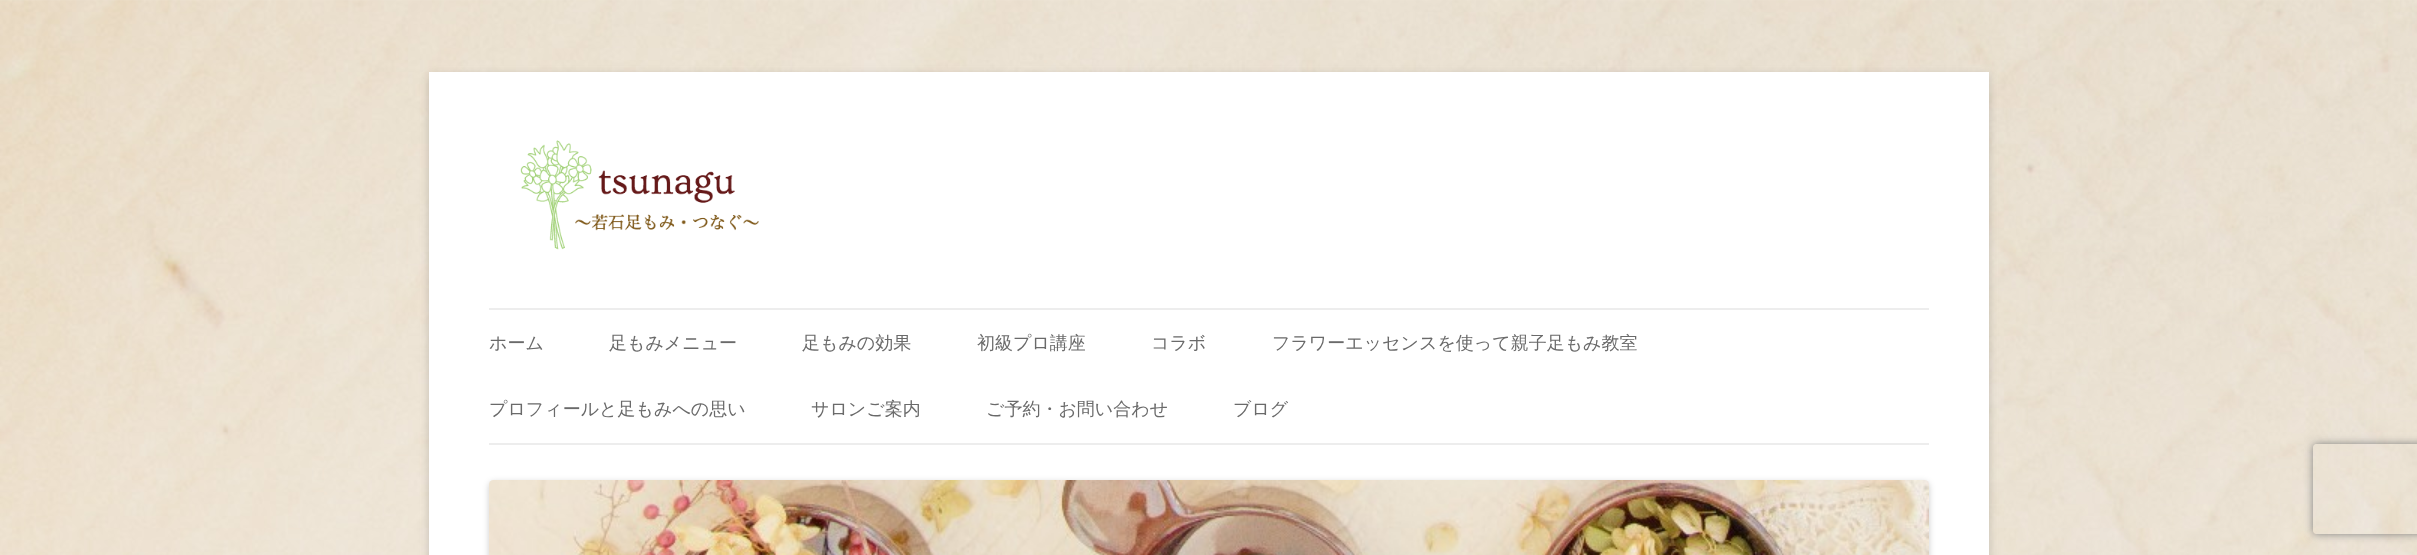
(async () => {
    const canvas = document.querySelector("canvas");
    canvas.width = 2417;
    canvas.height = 555;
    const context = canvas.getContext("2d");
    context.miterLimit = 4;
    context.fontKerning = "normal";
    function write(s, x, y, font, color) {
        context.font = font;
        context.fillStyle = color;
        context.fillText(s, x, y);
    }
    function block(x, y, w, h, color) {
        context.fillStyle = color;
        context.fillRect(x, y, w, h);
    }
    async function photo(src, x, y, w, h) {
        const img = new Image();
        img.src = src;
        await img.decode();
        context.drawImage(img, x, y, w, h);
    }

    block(0, 0, 2417, 555, "rgb(255, 255, 255)");
    await photo("media/1.png", 0, 0, 2417, 555);
    context.fillStyle = "rgba(100, 100, 100, 0.3)";
    context.filter = "blur(4.5px)";
    context.beginPath();
    context.rect(429, 75, 1560, 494);
    context.fill();
    context.filter = "none";
    block(429, 72, 1560, 483, "rgb(255, 255, 255)");
    await photo("media/2.png", 520, 140, 239, 110);
    block(489, 308, 1440, 2, "rgb(237, 237, 237)");
    block(489, 443, 1440, 2, "rgb(237, 237, 237)");
    write("ホーム", 489, 349, "500 18px WenQuanYi Zen Hei", "rgb(106, 106, 106)");
    write("足もみメニュー", 609, 349, "500 18px WenQuanYi Zen Hei", "rgb(106, 106, 106)");
    write("足もみの効果", 802, 349, "500 18px WenQuanYi Zen Hei", "rgb(106, 106, 106)");
    write("初級プロ講座", 977, 349, "500 18px WenQuanYi Zen Hei", "rgb(106, 106, 106)");
    write("コラボ", 1151, 349, "500 18px WenQuanYi Zen Hei", "rgb(106, 106, 106)");
    write("フラワーエッセンスを使って親子足もみ教室", 1272, 349, "500 18px WenQuanYi Zen Hei", "rgb(106, 106, 106)");
    write("プロフィールと足もみへの思い", 489, 415, "500 18px WenQuanYi Zen Hei", "rgb(106, 106, 106)");
    write("サロンご案内", 811, 415, "500 18px WenQuanYi Zen Hei", "rgb(106, 106, 106)");
    write("ご予約・お問い合わせ", 986, 415, "500 18px WenQuanYi Zen Hei", "rgb(106, 106, 106)");
    write("ブログ", 1233, 415, "500 18px WenQuanYi Zen Hei", "rgb(106, 106, 106)");
    context.fillStyle = "rgba(0, 0, 0, 0.2)";
    context.filter = "blur(3px)";
    context.beginPath();
    context.roundRect(489, 482, 1440, 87, 5);
    context.fill();
    context.filter = "none";
    await photo("media/3.png", 489, 480, 1440, 75);
    context.save();
    context.beginPath();
    context.moveTo(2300, 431);
    context.lineTo(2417, 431);
    context.lineTo(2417, 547);
    context.lineTo(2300, 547);
    context.closePath();
    context.moveTo(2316, 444);
    context.lineTo(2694, 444);
    context.bezierCurveTo(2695.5, 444, 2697, 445.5, 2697, 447);
    context.lineTo(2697, 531);
    context.bezierCurveTo(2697, 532.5, 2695.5, 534, 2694, 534);
    context.lineTo(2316, 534);
    context.bezierCurveTo(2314.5, 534, 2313, 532.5, 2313, 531);
    context.lineTo(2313, 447);
    context.bezierCurveTo(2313, 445.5, 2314.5, 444, 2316, 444);
    context.closePath();
    context.clip("evenodd");
    context.fillStyle = "rgb(128, 128, 128)";
    context.filter = "blur(4px)";
    context.beginPath();
    context.roundRect(2313, 444, 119, 90, 3);
    context.fill();
    context.filter = "none";
    context.restore();
})();
